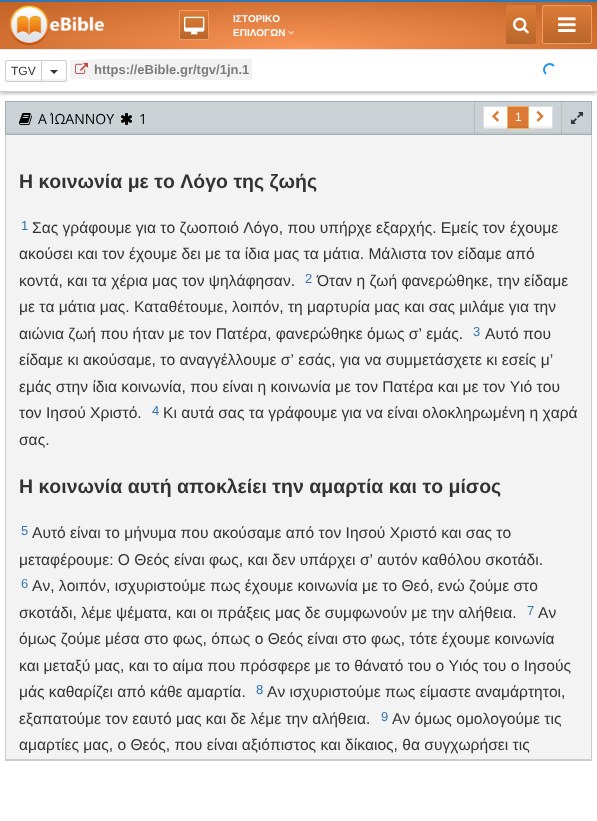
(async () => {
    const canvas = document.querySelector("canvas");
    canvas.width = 597;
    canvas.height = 821;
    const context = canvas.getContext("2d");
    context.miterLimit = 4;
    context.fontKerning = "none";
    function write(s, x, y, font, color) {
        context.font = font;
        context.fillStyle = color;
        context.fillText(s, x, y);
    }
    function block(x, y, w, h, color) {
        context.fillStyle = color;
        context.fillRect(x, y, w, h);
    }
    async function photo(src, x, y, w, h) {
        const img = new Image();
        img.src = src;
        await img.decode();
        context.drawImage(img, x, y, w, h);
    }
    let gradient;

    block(0, 0, 597, 821, "rgb(255, 255, 255)");
    block(0, 0, 597, 2, "rgb(50, 118, 177)");
    context.save();
    context.beginPath();
    context.rect(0, 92, 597, 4);
    context.clip();
    context.fillStyle = "rgba(0, 0, 0, 0.35)";
    context.filter = "blur(2px)";
    context.beginPath();
    context.rect(0, 50, 597, 43);
    context.fill();
    context.filter = "none";
    context.restore();
    gradient = context.createRadialGradient(299, 299.68, 0, 299, 299.68, 422);
    gradient.addColorStop(0, "rgb(252, 150, 89)");
    gradient.addColorStop(1, "rgb(193, 97, 36)");
    context.fillStyle = gradient;
    context.beginPath();
    context.rect(0, 2, 597, 47);
    context.save();
    context.clip();
    context.scale(1, 69 / 422);
    context.fillRect(0, 0, 597, 5022);
    context.restore();
    gradient = context.createLinearGradient(521, 5, 521, 44);
    gradient.addColorStop(0, "rgb(221, 124, 55)");
    gradient.addColorStop(1, "rgb(185, 102, 43)");
    context.fillStyle = gradient;
    context.beginPath();
    context.roundRect(506, 5, 30, 39, 2);
    context.fill();
    context.save();
    context.beginPath();
    context.roundRect(542, 5, 50, 39, 2);
    context.clip();
    gradient = context.createLinearGradient(567, 6, 567, 43);
    gradient.addColorStop(0, "rgb(221, 124, 55)");
    gradient.addColorStop(1, "rgb(185, 102, 43)");
    context.fillStyle = gradient;
    context.fillRect(542, 6, 50, 37);
    context.restore();
    context.beginPath();
    context.roundRect(542.5, 5.5, 49, 38, 1.5);
    context.strokeStyle = "rgb(240, 157, 97)";
    context.stroke();
    context.fillStyle = "rgb(34, 153, 221)";
    context.filter = "blur(5px)";
    context.beginPath();
    context.rect(497, -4, 100, 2);
    context.fill();
    context.filter = "none";
    context.beginPath();
    context.moveTo(546, 74);
    context.bezierCurveTo(540, 68.5, 548.5, 60, 554, 66);
    context.strokeStyle = "rgb(34, 153, 221)";
    context.lineWidth = 2;
    context.stroke();
    await photo("media/1.png", 9, 5, 96, 41);
    context.save();
    context.beginPath();
    context.roundRect(179, 10, 30, 30, 2);
    context.clip();
    gradient = context.createLinearGradient(194, 11, 194, 39);
    gradient.addColorStop(0, "rgb(221, 124, 55)");
    gradient.addColorStop(1, "rgb(185, 102, 43)");
    context.fillStyle = gradient;
    context.fillRect(179, 11, 30, 28);
    context.restore();
    context.beginPath();
    context.roundRect(179.5, 10.5, 29, 29, 1.5);
    context.strokeStyle = "rgb(240, 157, 97)";
    context.lineWidth = 1;
    context.stroke();
    await photo("media/2.png", 184, 16, 21, 19);
    write("ΙΣΤΟΡΙΚΟ", 233, 22, "bold 10px Liberation Sans", "rgb(255, 255, 255)");
    write("ΕΠΙΛΟΓΩΝ", 233, 36, "bold 10px Liberation Sans", "rgb(255, 255, 255)");
    await photo("media/3.png", 288, 31, 6, 4);
    await photo("media/4.png", 513, 17, 16, 17);
    await photo("media/5.png", 558, 17, 18, 15);
    block(0, 49, 597, 1, "rgb(230, 230, 230)");
    block(0, 91, 597, 1, "rgb(207, 207, 207)");
    context.fillStyle = "rgb(242, 242, 242)";
    context.beginPath();
    context.moveTo(6, 76.5);
    context.lineTo(6, 80);
    context.bezierCurveTo(6, 80.5, 6.5, 81, 7, 81);
    context.lineTo(41, 81);
    context.lineTo(41, 79);
    context.lineTo(7, 79.5);
    context.bezierCurveTo(6, 79, 6, 77.5, 6, 76.5);
    context.closePath();
    context.fill();
    context.beginPath();
    context.roundRect(5.5, 60.5, 36, 21, [1.5, 0, 0, 1.5]);
    context.strokeStyle = "rgb(204, 204, 204)";
    context.stroke();
    write("TGV", 11, 75, "12px Liberation Sans", "rgb(51, 51, 51)");
    context.fillStyle = "rgb(255, 255, 255)";
    context.beginPath();
    context.roundRect(41, 60, 26, 22, [0, 2, 2, 0]);
    context.fill();
    context.fillStyle = "rgb(242, 242, 242)";
    context.beginPath();
    context.moveTo(42, 79);
    context.lineTo(42, 81);
    context.lineTo(65, 81);
    context.bezierCurveTo(65.5, 81, 66, 80.5, 66, 80);
    context.lineTo(66, 78);
    context.lineTo(66, 79);
    context.closePath();
    context.fill();
    context.beginPath();
    context.roundRect(41.5, 60.5, 25, 21, [0, 1.5, 1.5, 0]);
    context.stroke();
    context.fillStyle = "rgb(51, 51, 51)";
    context.beginPath();
    context.moveTo(50, 70);
    context.lineTo(58, 70);
    context.lineTo(54, 74);
    context.closePath();
    context.fill();
    block(70, 60, 20, 19, "rgb(242, 242, 242)");
    block(90, 59, 162, 21, "rgb(242, 242, 242)");
    await photo("media/6.png", 75, 62, 13, 12);
    write("https://eBible.gr/tgv/1jn.1", 94, 74, "bold 13px Liberation Sans", "rgb(124, 124, 124)");
    block(6, 102, 585, 30, "rgb(203, 210, 213)");
    block(6, 132, 585, 2, "rgb(193, 200, 202)");
    context.strokeStyle = "rgb(160, 174, 179)";
    context.strokeRect(5.5, 101.5, 586, 33);
    await photo("media/7.png", 19, 113, 13, 12);
    write("Α΄ ΙΩΑΝΝΟΥ", 38, 124, "14px Open Sans", "rgb(0, 0, 0)");
    await photo("media/8.png", 120, 113, 12, 12);
    write("1", 139, 124, "14px Open Sans", "rgb(0, 0, 0)");
    block(474, 102, 1, 32, "rgba(0, 0, 0, 0.09)");
    context.fillStyle = "rgb(255, 255, 255)";
    context.beginPath();
    context.roundRect(483, 106, 25, 23, [2, 0, 0, 2]);
    context.fill();
    context.fillStyle = "rgb(242, 242, 242)";
    context.beginPath();
    context.moveTo(484, 126);
    context.lineTo(484, 127);
    context.bezierCurveTo(484, 127.5, 484.5, 128, 485, 128);
    context.lineTo(507, 128);
    context.lineTo(507, 126);
    context.closePath();
    context.fill();
    context.beginPath();
    context.roundRect(483.5, 106.5, 24, 22, [1.5, 0, 0, 1.5]);
    context.strokeStyle = "rgb(221, 221, 221)";
    context.stroke();
    await photo("media/9.png", 492, 110, 7, 12);
    block(508, 107, 20, 19, "rgb(220, 122, 53)");
    block(508, 126, 20, 2, "rgb(209, 116, 50)");
    context.fillStyle = "rgb(255, 255, 255)";
    context.beginPath();
    context.roundRect(528, 106, 25, 23, [0, 2, 2, 0]);
    context.fill();
    context.fillStyle = "rgb(242, 242, 242)";
    context.beginPath();
    context.moveTo(529, 126);
    context.lineTo(529, 128);
    context.lineTo(551, 128);
    context.bezierCurveTo(551.5, 128, 552, 127.5, 552, 127);
    context.lineTo(552, 125);
    context.lineTo(552, 126);
    context.closePath();
    context.fill();
    context.beginPath();
    context.roundRect(528.5, 106.5, 24, 22, [0, 1.5, 1.5, 0]);
    context.stroke();
    context.strokeStyle = "rgb(236, 180, 97)";
    context.strokeRect(507.5, 106.5, 21, 22);
    write("1", 515, 121, "12px Liberation Sans", "rgb(255, 255, 255)");
    await photo("media/10.png", 536, 110, 8, 12);
    block(561, 102, 1, 32, "rgba(0, 0, 0, 0.09)");
    await photo("media/11.png", 571, 112, 12, 12);
    block(6, 135, 585, 624, "rgb(243, 243, 243)");
    block(591, 135, 1, 626, "rgb(204, 204, 204)");
    block(5, 759, 587, 2, "rgb(204, 204, 204)");
    block(5, 135, 1, 626, "rgb(204, 204, 204)");
    write("Η κοινωνία με το Λόγο της ζωής", 19, 188, "bold 19.5px Liberation Sans", "rgb(51, 51, 51)");
    write("1", 21, 230, "13px Liberation Sans", "rgb(50, 118, 177)");
    write("Σας γράφουμε για το ζωοποιό Λόγο, που υπήρχε εξαρχής. Εμείς τον", 32, 233, "15.6px Liberation Sans", "rgb(51, 51, 51)");
    write("έχουμε", 510, 233, "15.6px Liberation Sans", "rgb(51, 51, 51)");
    write("ακούσει και τον έχουμε δει με τα ίδια μας τα μάτια. Μάλιστα τον είδαμε από", 19, 259, "15.6px Liberation Sans", "rgb(51, 51, 51)");
    write("κοντά, και τα χέρια μας τον ψηλάφησαν.", 19, 286, "15.6px Liberation Sans", "rgb(51, 51, 51)");
    write("2", 305, 283, "13px Liberation Sans", "rgb(50, 118, 177)");
    write("Όταν η ζωή φανερώθηκε, την είδαμε", 317, 286, "15.6px Liberation Sans", "rgb(51, 51, 51)");
    write("με τα μάτια μας. Καταθέτουμε, λοιπόν, τη μαρτυρία μας και σας μιλάμε για την", 19, 312, "15.6px Liberation Sans", "rgb(51, 51, 51)");
    write("αιώνια ζωή που ήταν με τον Πατέρα, φανερώθηκε όμως σ’ εμάς.", 19, 339, "15.6px Liberation Sans", "rgb(51, 51, 51)");
    write("3", 473, 336, "13px Liberation Sans", "rgb(50, 118, 177)");
    write("Αυτό που", 485, 339, "15.6px Liberation Sans", "rgb(51, 51, 51)");
    write("είδαμε κι ακούσαμε, το αναγγέλλουμε σ’ εσάς, για να συμμετάσχετε κι εσείς μ’", 19, 365, "15.6px Liberation Sans", "rgb(51, 51, 51)");
    write("εμάς στην ίδια κοινωνία, που είναι η κοινωνία με τον Πατέρα και με τον Υιό του", 19, 392, "15.6px Liberation Sans", "rgb(51, 51, 51)");
    write("τον Ιησού Χριστό.", 19, 418, "15.6px Liberation Sans", "rgb(51, 51, 51)");
    write("4", 152, 415, "13px Liberation Sans", "rgb(50, 118, 177)");
    write("Κι αυτά σας τα γράφουμε για να είναι ολοκληρωμένη η χαρά", 163, 418, "15.6px Liberation Sans", "rgb(51, 51, 51)");
    write("σας.", 19, 445, "15.6px Liberation Sans", "rgb(51, 51, 51)");
    write("Η κοινωνία αυτή αποκλείει την αμαρτία και το μίσος", 19, 493, "bold 19.5px Liberation Sans", "rgb(51, 51, 51)");
    write("5", 21, 535, "13px Liberation Sans", "rgb(50, 118, 177)");
    write("Αυτό είναι το μήνυμα που ακούσαμε από τον Ιησού Χριστό και σας το", 32, 538, "15.6px Liberation Sans", "rgb(51, 51, 51)");
    write("μεταφέρουμε: Ο Θεός είναι φως, και δεν υπάρχει σ’ αυτόν καθόλου σκοτάδι.", 19, 565, "15.6px Liberation Sans", "rgb(51, 51, 51)");
    write("6", 21, 588, "13px Liberation Sans", "rgb(50, 118, 177)");
    write("Αν, λοιπόν, ισχυριστούμε πως έχουμε κοινωνία με το Θεό, ενώ ζούμε στο", 32, 591, "15.6px Liberation Sans", "rgb(51, 51, 51)");
    write("σκοτάδι, λέμε ψέματα, και οι πράξεις μας δε συμφωνούν με την αλήθεια.", 19, 618, "15.6px Liberation Sans", "rgb(51, 51, 51)");
    write("7", 527, 615, "13px Liberation Sans", "rgb(50, 118, 177)");
    write("Αν", 538, 618, "15.6px Liberation Sans", "rgb(51, 51, 51)");
    write("όμως ζούμε μέσα στο φως, όπως ο Θεός είναι στο φως, τότε έχουμε κοινωνία", 19, 644, "15.6px Liberation Sans", "rgb(51, 51, 51)");
    write("και μεταξύ μας, και το αίμα που πρόσφερε με το θάνατό του ο Υιός του ο Ιησούς", 19, 671, "15.6px Liberation Sans", "rgb(51, 51, 51)");
    write("μάς καθαρίζει από κάθε αμαρτία.", 19, 697, "15.6px Liberation Sans", "rgb(51, 51, 51)");
    write("8", 256, 694, "13px Liberation Sans", "rgb(50, 118, 177)");
    write("Αν ισχυριστούμε πως είμαστε αναμάρτητοι,", 267, 697, "15.6px Liberation Sans", "rgb(51, 51, 51)");
    write("εξαπατούμε τον εαυτό μας και δε λέμε την αλήθεια.", 19, 724, "15.6px Liberation Sans", "rgb(51, 51, 51)");
    write("9", 381, 721, "13px Liberation Sans", "rgb(50, 118, 177)");
    write("Αν όμως ομολογούμε τις", 392, 724, "15.6px Liberation Sans", "rgb(51, 51, 51)");
    write("αμαρτίες μας, ο Θεός, που είναι αξιόπιστος και δίκαιος, θα συγχωρήσει τις", 19, 750, "15.6px Liberation Sans", "rgb(51, 51, 51)");
})();
